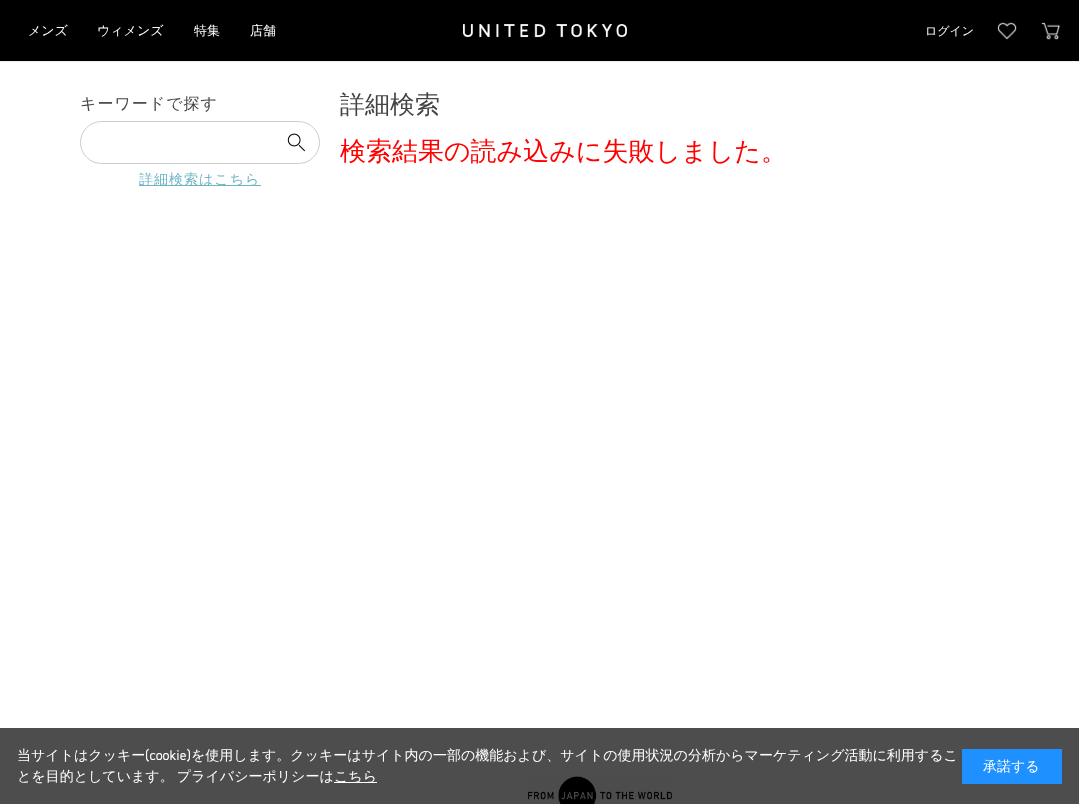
(async () => {
    const canvas = document.querySelector("canvas");
    canvas.width = 1079;
    canvas.height = 804;
    const context = canvas.getContext("2d");
    context.miterLimit = 4;
    context.fontKerning = "normal";
    function write(s, x, y, font, color) {
        context.font = font;
        context.fillStyle = color;
        context.fillText(s, x, y);
    }
    function block(x, y, w, h, color) {
        context.fillStyle = color;
        context.fillRect(x, y, w, h);
    }
    async function photo(src, x, y, w, h) {
        const img = new Image();
        img.src = src;
        await img.decode();
        context.drawImage(img, x, y, w, h);
    }

    block(0, 0, 1079, 804, "rgb(255, 255, 255)");
    block(0, 728, 1079, 76, "rgb(77, 77, 77)");
    block(0, 0, 1079, 61, "rgb(0, 0, 0)");
    block(0, 61, 1079, 1, "rgb(237, 237, 237)");
    write("メンズ", 28, 35, "500 13px WenQuanYi Zen Hei", "rgb(255, 255, 255)");
    write("ウィメンズ", 97, 35, "500 13px WenQuanYi Zen Hei", "rgb(255, 255, 255)");
    write("特集", 194, 35, "500 13px WenQuanYi Zen Hei", "rgb(255, 255, 255)");
    write("店舗", 250, 35, "500 13px WenQuanYi Zen Hei", "rgb(255, 255, 255)");
    await photo("media/1.png", 463, 24, 164, 14);
    write("ログイン", 925, 35, "500 12px WenQuanYi Zen Hei", "rgb(255, 255, 255)");
    await photo("media/2.png", 997, 22, 20, 18);
    await photo("media/3.png", 1041, 22, 20, 18);
    context.letterSpacing = "1px";
    write("キーワードで探す", 80, 109, "500 16px WenQuanYi Zen Hei", "rgb(68, 68, 68)");
    await photo("media/4.png", 287, 133, 18, 19);
    context.beginPath();
    context.roundRect(80.5, 121.5, 239, 42, 21);
    context.strokeStyle = "rgb(204, 204, 204)";
    context.stroke();
    block(139, 185, 122, 1, "rgb(111, 180, 195)");
    write("詳細検索はこちら", 139, 184, "500 14px WenQuanYi Zen Hei", "rgb(111, 180, 195)");
    context.letterSpacing = "0px";
    write("詳細検索", 340, 113, "500 25px WenQuanYi Zen Hei", "rgb(68, 68, 68)");
    write("検索結果の読み込みに失敗しました。", 340, 160, "500 26px WenQuanYi Zen Hei", "rgb(255, 0, 0)");
    await photo("media/5.png", 528, 776, 144, 28);
    write("当サイトはクッキー", 17, 760, "500 14px WenQuanYi Zen Hei", "rgb(255, 255, 255)");
    write("(cookie)", 145, 760, "14px 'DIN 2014'", "rgb(255, 255, 255)");
    write("を使用します。クッキーはサイト内の一部の機能および、サイトの使用状況の分析からマーケティング活動に利用するこ", 191, 760, "500 14px WenQuanYi Zen Hei", "rgb(255, 255, 255)");
    context.wordSpacing = "-1px";
    write("とを目的としています。 プライバシーポリシーは", 17, 781, "500 14px WenQuanYi Zen Hei", "rgb(255, 255, 255)");
    block(334, 782, 43, 1, "rgb(255, 255, 255)");
    context.wordSpacing = "0px";
    write("こちら", 334, 781, "500 14px WenQuanYi Zen Hei", "rgb(255, 255, 255)");
    block(962, 749, 100, 35, "rgb(30, 144, 255)");
    write("承諾する", 983, 771, "500 14px WenQuanYi Zen Hei", "rgb(255, 255, 255)");
})();
